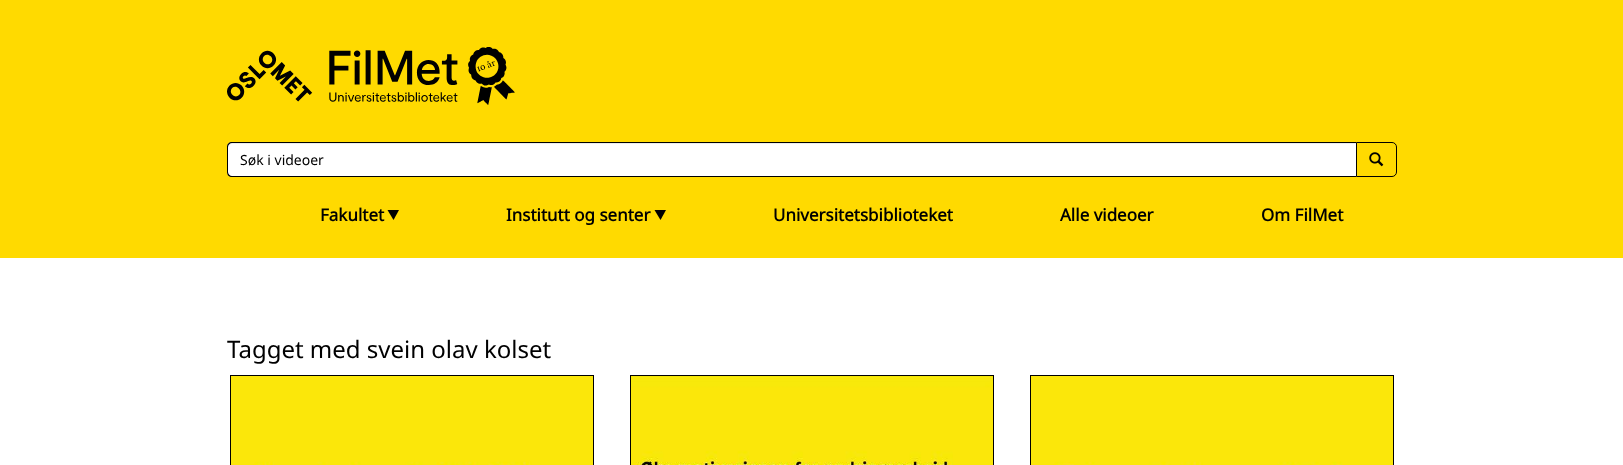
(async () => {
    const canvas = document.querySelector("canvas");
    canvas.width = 1623;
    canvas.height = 465;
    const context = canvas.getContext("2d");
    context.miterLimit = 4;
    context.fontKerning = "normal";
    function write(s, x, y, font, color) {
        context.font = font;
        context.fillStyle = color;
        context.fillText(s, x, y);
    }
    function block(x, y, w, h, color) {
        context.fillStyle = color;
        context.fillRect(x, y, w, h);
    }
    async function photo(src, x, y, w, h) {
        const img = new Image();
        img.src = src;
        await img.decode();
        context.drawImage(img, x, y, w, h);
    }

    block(0, 0, 1623, 465, "rgb(255, 255, 255)");
    block(0, 0, 1623, 258, "rgb(255, 218, 0)");
    await photo("media/1.png", 227, 47, 288, 58);
    context.fillStyle = "rgb(255, 255, 255)";
    context.beginPath();
    context.roundRect(227, 142, 1129, 35, [5, 0, 0, 5]);
    context.fill();
    context.fillStyle = "rgb(236, 236, 236)";
    context.beginPath();
    context.moveTo(232, 144);
    context.lineTo(1356, 144);
    context.lineTo(1356, 143);
    context.lineTo(232, 143);
    context.bezierCurveTo(229, 143, 228, 145, 228, 148);
    context.bezierCurveTo(228, 146, 230, 144, 232, 144);
    context.closePath();
    context.fill();
    context.fillStyle = "rgb(0, 0, 0)";
    context.beginPath();
    context.moveTo(232, 142);
    context.lineTo(1356, 142);
    context.lineTo(1356, 177);
    context.lineTo(232, 177);
    context.bezierCurveTo(229, 177, 227, 175, 227, 172);
    context.lineTo(227, 147);
    context.bezierCurveTo(227, 144, 229, 142, 232, 142);
    context.closePath();
    context.moveTo(232, 143);
    context.lineTo(1356, 143);
    context.lineTo(1356, 176);
    context.lineTo(232, 176);
    context.bezierCurveTo(230, 176, 228, 174, 228, 172);
    context.lineTo(228, 147);
    context.bezierCurveTo(228, 145, 230, 143, 232, 143);
    context.closePath();
    context.fill("evenodd");
    write("Søk i videoer", 240, 165, "14px Noto Sans", "rgb(0, 0, 0)");
    context.beginPath();
    context.roundRect(1356.5, 142.5, 40, 34, [0, 4.5, 4.5, 0]);
    context.strokeStyle = "rgb(0, 0, 0)";
    context.stroke();
    await photo("media/2.png", 1369, 152, 15, 15);
    write("Fakultet", 320, 221, "bold 17px Noto Sans", "rgb(0, 0, 0)");
    context.beginPath();
    context.moveTo(393.5, 220);
    context.lineTo(399, 210);
    context.lineTo(387.5, 210);
    context.closePath();
    context.fill();
    write("Institutt og senter", 506, 221, "bold 17px Noto Sans", "rgb(0, 0, 0)");
    context.beginPath();
    context.moveTo(660.5, 220);
    context.lineTo(666, 210);
    context.lineTo(654.5, 210);
    context.closePath();
    context.fill();
    write("Universitetsbiblioteket", 773, 221, "bold 17px Noto Sans", "rgb(0, 0, 0)");
    write("Alle videoer", 1060, 221, "bold 17px Noto Sans", "rgb(0, 0, 0)");
    write("Om FilMet", 1261, 221, "bold 17px Noto Sans", "rgb(0, 0, 0)");
    write("Tagget med svein olav kolset", 227, 358, "24px Noto Sans", "rgb(0, 0, 0)");
    context.strokeRect(230.5, 375.5, 363, 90);
    await photo("media/3.png", 231, 376, 362, 89);
    context.strokeRect(630.5, 375.5, 363, 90);
    await photo("media/4.png", 631, 376, 362, 89);
    context.strokeRect(1030.5, 375.5, 363, 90);
    await photo("media/5.png", 1031, 376, 362, 89);
})();
